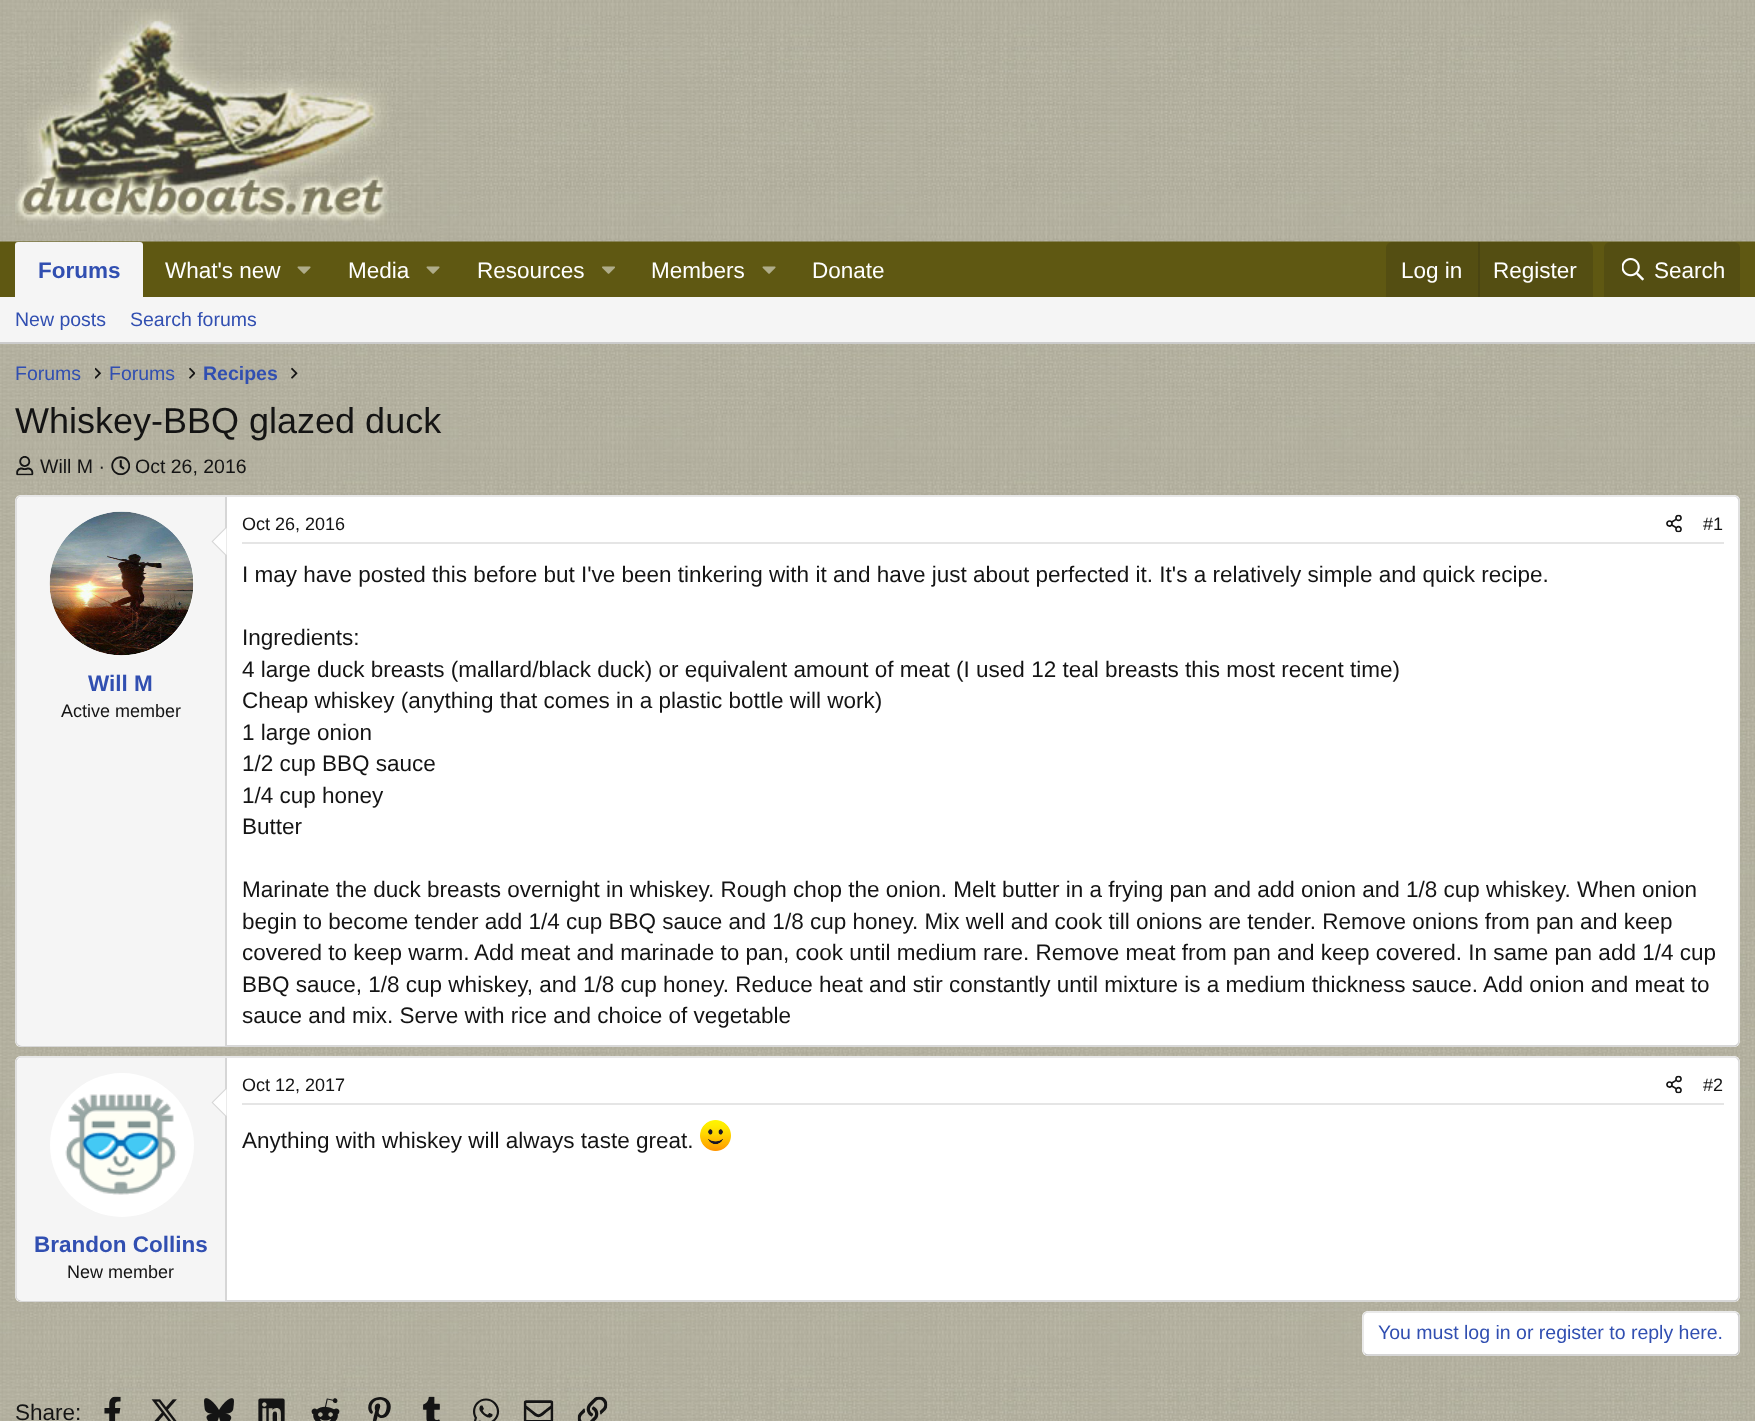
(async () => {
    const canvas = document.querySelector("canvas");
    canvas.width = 1755;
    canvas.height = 1421;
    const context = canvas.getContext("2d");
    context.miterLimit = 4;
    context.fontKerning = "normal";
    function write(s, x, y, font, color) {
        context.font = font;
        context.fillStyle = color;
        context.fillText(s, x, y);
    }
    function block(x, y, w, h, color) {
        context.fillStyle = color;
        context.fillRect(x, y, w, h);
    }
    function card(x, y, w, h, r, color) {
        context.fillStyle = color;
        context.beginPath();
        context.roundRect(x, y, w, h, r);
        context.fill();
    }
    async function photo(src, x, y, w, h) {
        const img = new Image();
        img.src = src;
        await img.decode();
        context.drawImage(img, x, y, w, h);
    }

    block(0, 0, 1755, 1421, "rgb(255, 255, 255)");
    await photo("media/1.png", 0, 344, 1755, 1077);
    block(0, 241, 1755, 56, "rgb(95, 88, 18)");
    await photo("media/2.png", 0, 0, 1755, 242);
    await photo("media/3.png", 15, 9, 421, 224);
    context.fillStyle = "rgb(245, 245, 245)";
    context.beginPath();
    context.roundRect(15, 242, 128, 55, [3, 3, 0, 0]);
    context.fill();
    write("Forums", 38, 278, "bold 22.5px Liberation Sans", "rgb(49, 79, 177)");
    write("What's new", 165, 278, "22.5px Liberation Sans", "rgb(255, 255, 255)");
    await photo("media/4.png", 297, 266, 14, 8);
    write("Media", 348, 278, "22.5px Liberation Sans", "rgb(255, 255, 255)");
    await photo("media/4.png", 426, 266, 14, 8);
    write("Resources", 477, 278, "22.5px Liberation Sans", "rgb(255, 255, 255)");
    await photo("media/5.png", 602, 266, 13, 8);
    write("Members", 651, 278, "22.5px Liberation Sans", "rgb(255, 255, 255)");
    await photo("media/4.png", 762, 266, 14, 8);
    write("Donate", 812, 278, "22.5px Liberation Sans", "rgb(255, 255, 255)");
    context.fillStyle = "rgb(84, 78, 18)";
    context.beginPath();
    context.roundRect(1386, 242, 207, 55, [6, 6, 0, 0]);
    context.fill();
    write("Log in", 1401, 278, "22.5px Liberation Sans", "rgb(255, 255, 255)");
    block(1478, 242, 2, 55, "rgb(74, 69, 18)");
    write("Register", 1493, 278, "22.5px Liberation Sans", "rgb(255, 255, 255)");
    context.fillStyle = "rgb(84, 78, 18)";
    context.beginPath();
    context.roundRect(1604, 242, 136, 55, [6, 6, 0, 0]);
    context.fill();
    await photo("media/6.png", 1622, 258, 22, 23);
    write("Search", 1654, 278, "22.5px Liberation Sans", "rgb(255, 255, 255)");
    block(0, 297, 1755, 45, "rgb(245, 245, 245)");
    block(0, 342, 1755, 2, "rgb(204, 204, 204)");
    write("New posts", 15, 326, "19.5px Liberation Sans", "rgb(49, 79, 177)");
    write("Search forums", 130, 326, "19.5px Liberation Sans", "rgb(49, 79, 177)");
    write("Forums", 15, 380, "19.5px Liberation Sans", "rgb(49, 79, 177)");
    await photo("media/7.png", 95, 367, 6, 12);
    write("Forums", 109, 380, "19.5px Liberation Sans", "rgb(49, 79, 177)");
    await photo("media/8.png", 189, 367, 6, 12);
    write("Recipes", 203, 380, "bold 19.5px Liberation Sans", "rgb(49, 79, 177)");
    await photo("media/9.png", 291, 367, 7, 12);
    write("Whiskey-BBQ glazed duck", 15, 433, "36px Liberation Sans", "rgb(20, 20, 20)");
    await photo("media/10.png", 16, 456, 18, 20);
    write("Will M ·", 40, 473, "19.5px Liberation Sans", "rgb(20, 20, 20)");
    await photo("media/11.png", 111, 456, 20, 20);
    write("Oct 26, 2016", 135, 473, "19.5px Liberation Sans", "rgb(20, 20, 20)");
    card(15, 495, 1725, 552, 6, "rgb(255, 255, 255)");
    context.beginPath();
    context.moveTo(17.5, 497.5);
    context.bezierCurveTo(18.5, 496.5, 19.5, 496, 21, 496);
    context.lineTo(1734, 496);
    context.bezierCurveTo(1735.5, 496, 1736.5, 496.5, 1737.5, 497.5);
    context.strokeStyle = "rgb(224, 224, 224)";
    context.lineWidth = 1.5;
    context.stroke();
    context.beginPath();
    context.moveTo(1737.5, 497.5);
    context.bezierCurveTo(1738.5, 498.5, 1739, 499.5, 1739, 501);
    context.lineTo(1739, 1041);
    context.bezierCurveTo(1739, 1042.5, 1738.5, 1043.5, 1737.5, 1044.5);
    context.strokeStyle = "rgb(214, 214, 214)";
    context.stroke();
    context.beginPath();
    context.moveTo(1737.5, 1044.5);
    context.bezierCurveTo(1736.5, 1045.5, 1735.5, 1046, 1734, 1046);
    context.lineTo(21, 1046);
    context.bezierCurveTo(19.5, 1046, 18.5, 1045.5, 17.5, 1044.5);
    context.strokeStyle = "rgb(204, 204, 204)";
    context.stroke();
    context.beginPath();
    context.moveTo(17.5, 1044.5);
    context.bezierCurveTo(16.5, 1043.5, 16, 1042.5, 16, 1041);
    context.lineTo(16, 501);
    context.bezierCurveTo(16, 499.5, 16.5, 498.5, 17.5, 497.5);
    context.strokeStyle = "rgb(214, 214, 214)";
    context.stroke();
    context.fillStyle = "rgb(245, 245, 245)";
    context.beginPath();
    context.roundRect(17, 497, 210, 549, [5, 0, 0, 5]);
    context.fill();
    block(225, 497, 2, 549, "rgb(214, 214, 214)");
    context.fillStyle = "rgb(255, 255, 255)";
    context.beginPath();
    context.arc(122, 584, 72, 0, Math.PI * 2);
    context.fill();
    await photo("media/12.png", 49, 511, 145, 145);
    context.fillStyle = "rgb(214, 214, 214)";
    context.beginPath();
    context.moveTo(226.5, 526.5);
    context.lineTo(226.5, 556.5);
    context.lineTo(211.5, 541.5);
    context.closePath();
    context.fill();
    context.fillStyle = "rgb(255, 255, 255)";
    context.beginPath();
    context.moveTo(226.5, 528);
    context.lineTo(226.5, 555);
    context.lineTo(213, 541.5);
    context.closePath();
    context.fill();
    write("Will M", 88, 691, "bold 22.5px Liberation Sans", "rgb(49, 79, 177)");
    write("Active member", 61, 717, "18px Liberation Sans", "rgb(20, 20, 20)");
    block(242, 542, 1482, 2, "rgb(229, 229, 229)");
    write("Oct 26, 2016", 242, 530, "18px Liberation Sans", "rgb(20, 20, 20)");
    await photo("media/13.png", 1666, 514, 16, 19);
    write("#1", 1703, 530, "18px Liberation Sans", "rgb(20, 20, 20)");
    write("I may have posted this before but I've been tinkering with it and have just about perfected it. It's a relatively simple and quick recipe.", 242, 582, "22.5px Liberation Sans", "rgb(20, 20, 20)");
    write("Ingredients:", 242, 645, "22.5px Liberation Sans", "rgb(20, 20, 20)");
    write("4 large duck breasts (mallard/black duck) or equivalent amount of meat (I used 12 teal breasts this most recent time)", 242, 677, "22.5px Liberation Sans", "rgb(20, 20, 20)");
    write("Cheap whiskey (anything that comes in a plastic bottle will work)", 242, 708, "22.5px Liberation Sans", "rgb(20, 20, 20)");
    write("1 large onion", 242, 740, "22.5px Liberation Sans", "rgb(20, 20, 20)");
    write("1/2 cup BBQ sauce", 242, 771, "22.5px Liberation Sans", "rgb(20, 20, 20)");
    write("1/4 cup honey", 242, 803, "22.5px Liberation Sans", "rgb(20, 20, 20)");
    write("Butter", 242, 834, "22.5px Liberation Sans", "rgb(20, 20, 20)");
    write("Marinate the duck breasts overnight in whiskey. Rough chop the onion. Melt butter in a frying pan and add onion and 1/8 cup whiskey. When onion", 242, 897, "22.5px Liberation Sans", "rgb(20, 20, 20)");
    write("begin to become tender add 1/4 cup BBQ sauce and 1/8 cup honey. Mix well and cook till onions are tender. Remove onions from pan and keep", 242, 929, "22.5px Liberation Sans", "rgb(20, 20, 20)");
    write("covered to keep warm.", 242, 960, "22.5px Liberation Sans", "rgb(20, 20, 20)");
    write("Add meat and marinade to pan, cook until medium rare. Remove meat from pan and keep covered. In same pan add 1/4 cup", 474, 960, "22.5px Liberation Sans", "rgb(20, 20, 20)");
    write("BBQ sauce, 1/8 cup whiskey, and 1/8 cup honey. Reduce heat and stir constantly until mixture is a medium thickness sauce. Add onion and meat to", 242, 992, "22.5px Liberation Sans", "rgb(20, 20, 20)");
    write("sauce and mix. Serve with rice and choice of vegetable", 242, 1023, "22.5px Liberation Sans", "rgb(20, 20, 20)");
    card(15, 1056, 1725, 246, 6, "rgb(255, 255, 255)");
    context.beginPath();
    context.moveTo(17.5, 1058.5);
    context.bezierCurveTo(18.5, 1057.5, 19.5, 1057, 21, 1057);
    context.lineTo(1734, 1057);
    context.bezierCurveTo(1735.5, 1057, 1736.5, 1057.5, 1737.5, 1058.5);
    context.strokeStyle = "rgb(224, 224, 224)";
    context.stroke();
    context.beginPath();
    context.moveTo(1737.5, 1058.5);
    context.bezierCurveTo(1738.5, 1059.5, 1739, 1060.5, 1739, 1062);
    context.lineTo(1739, 1296);
    context.bezierCurveTo(1739, 1297.5, 1738.5, 1298.5, 1737.5, 1299.5);
    context.strokeStyle = "rgb(214, 214, 214)";
    context.stroke();
    context.beginPath();
    context.moveTo(1737.5, 1299.5);
    context.bezierCurveTo(1736.5, 1300.5, 1735.5, 1301, 1734, 1301);
    context.lineTo(21, 1301);
    context.bezierCurveTo(19.5, 1301, 18.5, 1300.5, 17.5, 1299.5);
    context.strokeStyle = "rgb(204, 204, 204)";
    context.stroke();
    context.beginPath();
    context.moveTo(17.5, 1299.5);
    context.bezierCurveTo(16.5, 1298.5, 16, 1297.5, 16, 1296);
    context.lineTo(16, 1062);
    context.bezierCurveTo(16, 1060.5, 16.5, 1059.5, 17.5, 1058.5);
    context.strokeStyle = "rgb(214, 214, 214)";
    context.stroke();
    block(242, 1103, 1482, 2, "rgb(229, 229, 229)");
    write("Oct 12, 2017", 242, 1091, "18px Liberation Sans", "rgb(20, 20, 20)");
    await photo("media/13.png", 1666, 1075, 16, 19);
    write("#2", 1703, 1091, "18px Liberation Sans", "rgb(20, 20, 20)");
    write("Anything with whiskey will always taste great.", 242, 1148, "22.5px Liberation Sans", "rgb(20, 20, 20)");
    await photo("media/14.png", 700, 1120, 31, 31);
    context.fillStyle = "rgb(245, 245, 245)";
    context.beginPath();
    context.roundRect(17, 1058, 210, 243, [5, 0, 0, 5]);
    context.fill();
    block(225, 1058, 2, 243, "rgb(214, 214, 214)");
    context.fillStyle = "rgb(255, 255, 255)";
    context.beginPath();
    context.arc(122, 1145, 72, 0, Math.PI * 2);
    context.fill();
    await photo("media/15.png", 65, 1094, 112, 101);
    context.fillStyle = "rgb(214, 214, 214)";
    context.beginPath();
    context.moveTo(226.5, 1087.5);
    context.lineTo(226.5, 1117.5);
    context.lineTo(211.5, 1102.5);
    context.closePath();
    context.fill();
    context.fillStyle = "rgb(255, 255, 255)";
    context.beginPath();
    context.moveTo(226.5, 1089);
    context.lineTo(226.5, 1116);
    context.lineTo(213, 1102.5);
    context.closePath();
    context.fill();
    write("Brandon Collins", 34, 1252, "bold 22.5px Liberation Sans", "rgb(49, 79, 177)");
    write("New member", 67, 1278, "18px Liberation Sans", "rgb(20, 20, 20)");
    card(1362, 1311, 378, 45, 6, "rgb(255, 255, 255)");
    context.beginPath();
    context.moveTo(1737.5, 1313.5);
    context.bezierCurveTo(1738.5, 1314.5, 1739, 1315.5, 1739, 1317);
    context.lineTo(1739, 1350);
    context.bezierCurveTo(1739, 1351.5, 1738.5, 1352.5, 1737.5, 1353.5);
    context.bezierCurveTo(1736.5, 1354.5, 1735.5, 1355, 1734, 1355);
    context.lineTo(1368, 1355);
    context.bezierCurveTo(1366.5, 1355, 1365.5, 1354.5, 1364.5, 1353.5);
    context.strokeStyle = "rgb(201, 201, 201)";
    context.stroke();
    context.beginPath();
    context.moveTo(1364.5, 1353.5);
    context.bezierCurveTo(1363.5, 1352.5, 1363, 1351.5, 1363, 1350);
    context.lineTo(1363, 1317);
    context.bezierCurveTo(1363, 1315.5, 1363.5, 1314.5, 1364.5, 1313.5);
    context.bezierCurveTo(1365.5, 1312.5, 1366.5, 1312, 1368, 1312);
    context.lineTo(1734, 1312);
    context.bezierCurveTo(1735.5, 1312, 1736.5, 1312.5, 1737.5, 1313.5);
    context.strokeStyle = "rgb(227, 227, 227)";
    context.stroke();
    write("You must log in or register to reply here.", 1378, 1339, "19.5px Liberation Sans", "rgb(49, 79, 177)");
    write("Share:", 15, 1420, "22.5px Liberation Sans", "rgb(20, 20, 20)");
    await photo("media/16.png", 104, 1396, 17, 25);
    await photo("media/17.png", 151, 1399, 26, 22);
    await photo("media/18.png", 204, 1398, 30, 23);
    await photo("media/19.png", 258, 1398, 27, 23);
    await photo("media/20.png", 311, 1398, 29, 23);
    await photo("media/21.png", 368, 1397, 23, 24);
    await photo("media/22.png", 423, 1396, 17, 25);
    await photo("media/23.png", 473, 1398, 27, 23);
    await photo("media/24.png", 523, 1400, 31, 21);
    await photo("media/25.png", 577, 1396, 31, 25);
})();
